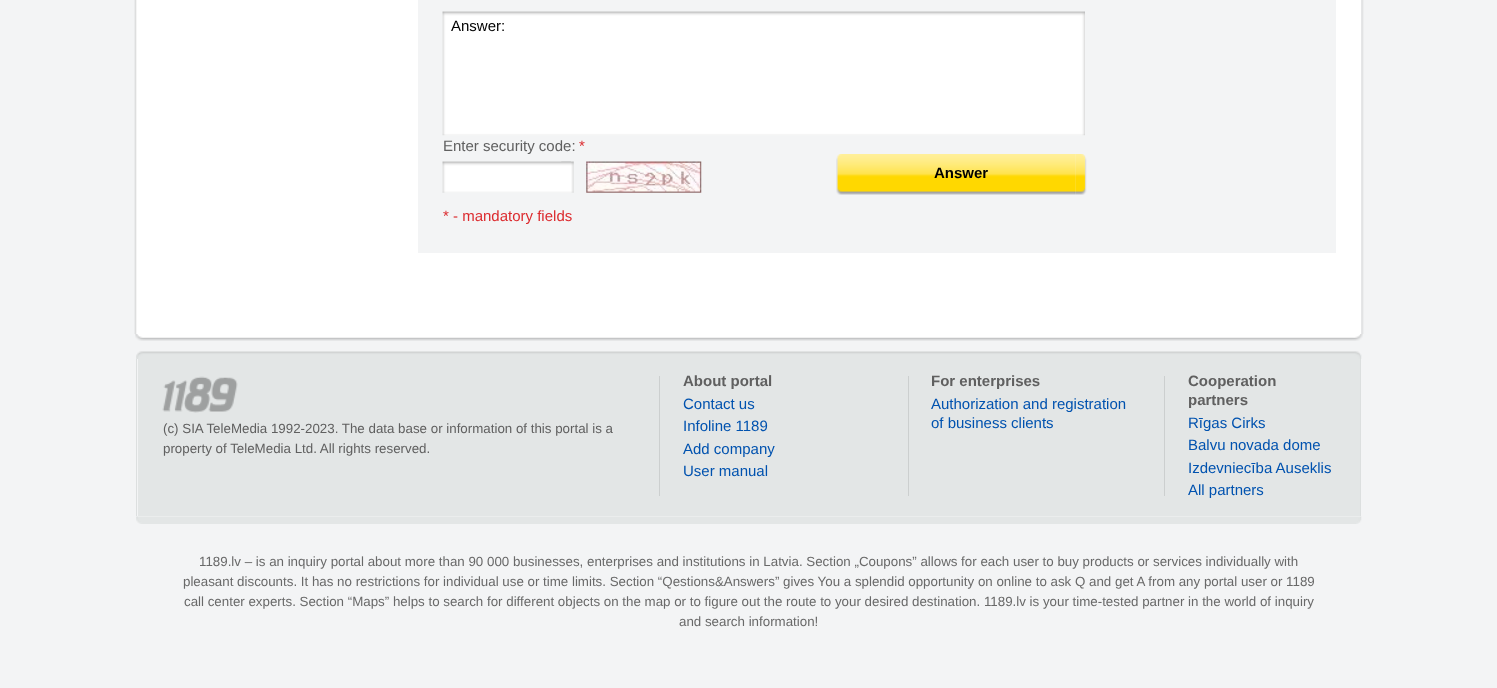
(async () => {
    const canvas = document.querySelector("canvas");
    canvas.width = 1497;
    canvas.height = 688;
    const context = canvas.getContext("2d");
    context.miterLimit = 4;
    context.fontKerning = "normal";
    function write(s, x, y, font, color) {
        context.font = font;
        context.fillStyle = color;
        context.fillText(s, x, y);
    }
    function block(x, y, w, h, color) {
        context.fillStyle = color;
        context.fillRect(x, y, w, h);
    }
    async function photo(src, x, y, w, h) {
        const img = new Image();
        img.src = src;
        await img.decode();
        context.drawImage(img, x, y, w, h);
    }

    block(0, 0, 1497, 688, "rgb(243, 244, 245)");
    await photo("media/1.png", 134, 0, 1230, 334);
    block(418, 0, 918, 253, "rgb(243, 244, 245)");
    await photo("media/2.png", 442, 11, 643, 125);
    write("Answer:", 451, 31, "15px Liberation Sans", "rgb(0, 0, 0)");
    write("Enter security code:", 443, 151, "15px Liberation Sans", "rgb(96, 96, 96)");
    write("*", 579, 151, "15px Liberation Sans", "rgb(220, 43, 47)");
    await photo("media/3.png", 561, 161, 13, 32);
    await photo("media/4.png", 442, 161, 129, 32);
    await photo("media/5.png", 586, 161, 116, 32);
    await photo("media/6.png", 1074, 154, 13, 41);
    await photo("media/7.png", 836, 154, 239, 41);
    write("Answer", 934, 178, "bold 15px Liberation Sans", "rgb(0, 0, 0)");
    write("* - mandatory fields", 443, 221, "15px Liberation Sans", "rgb(220, 43, 47)");
    await photo("media/8.png", 135, 334, 1228, 7);
    await photo("media/9.png", 136, 351, 1226, 8);
    block(138, 359, 1222, 157, "rgb(227, 230, 230)");
    block(1360, 359, 1, 157, "rgb(220, 223, 223)");
    block(136, 359, 1, 157, "rgb(220, 223, 223)");
    await photo("media/10.png", 162, 376, 76, 37);
    write("(c) SIA TeleMedia 1992-2023. The data base or information of this portal is a", 163, 433, "13.33px Liberation Sans", "rgb(96, 96, 96)");
    write("property of TeleMedia Ltd. All rights reserved.", 163, 453, "13.33px Liberation Sans", "rgb(96, 96, 96)");
    block(659, 376, 1, 120, "rgb(204, 207, 207)");
    write("About portal", 683, 386, "bold 15px Liberation Sans", "rgb(96, 96, 96)");
    write("Contact us", 683, 409, "15px Liberation Sans", "rgb(0, 82, 175)");
    write("Infoline 1189", 683, 431, "15px Liberation Sans", "rgb(0, 82, 175)");
    write("Add company", 683, 454, "15px Liberation Sans", "rgb(0, 82, 175)");
    write("User manual", 683, 476, "15px Liberation Sans", "rgb(0, 82, 175)");
    block(908, 376, 1, 120, "rgb(204, 207, 207)");
    write("For enterprises", 931, 386, "bold 15px Liberation Sans", "rgb(96, 96, 96)");
    write("Authorization and registration", 931, 409, "15px Liberation Sans", "rgb(0, 82, 175)");
    write("of business clients", 931, 428, "15px Liberation Sans", "rgb(0, 82, 175)");
    block(1164, 376, 1, 120, "rgb(204, 207, 207)");
    write("Cooperation", 1188, 386, "bold 15px Liberation Sans", "rgb(96, 96, 96)");
    write("partners", 1188, 405, "bold 15px Liberation Sans", "rgb(96, 96, 96)");
    write("Rīgas Cirks", 1188, 428, "15px Liberation Sans", "rgb(0, 82, 175)");
    write("Balvu novada dome", 1188, 450, "15px Liberation Sans", "rgb(0, 82, 175)");
    write("Izdevniecība Auseklis", 1188, 473, "15px Liberation Sans", "rgb(0, 82, 175)");
    write("All partners", 1188, 495, "15px Liberation Sans", "rgb(0, 82, 175)");
    await photo("media/11.png", 136, 516, 1226, 8);
    write("1189.lv – is an inquiry portal about more than 90 000 businesses, enterprises and institutions in Latvia. Section „Coupons” allows for each user to buy products or services individually with", 199, 566, "13.33px Liberation Sans", "rgb(105, 105, 105)");
    write("pleasant discounts. It has no restrictions for individual use or time limits. Section “Qestions&Answers” gives You a splendid opportunity on online to ask Q and get A from any portal user or 1189", 183, 586, "13.33px Liberation Sans", "rgb(105, 105, 105)");
    write("call center experts. Section “Maps” helps to search for different objects on the map or to figure out the route to your desired destination. 1189.lv is your time-tested partner in the world of inquiry", 184, 606, "13.33px Liberation Sans", "rgb(105, 105, 105)");
    write("and search information!", 679, 626, "13.33px Liberation Sans", "rgb(105, 105, 105)");
})();
